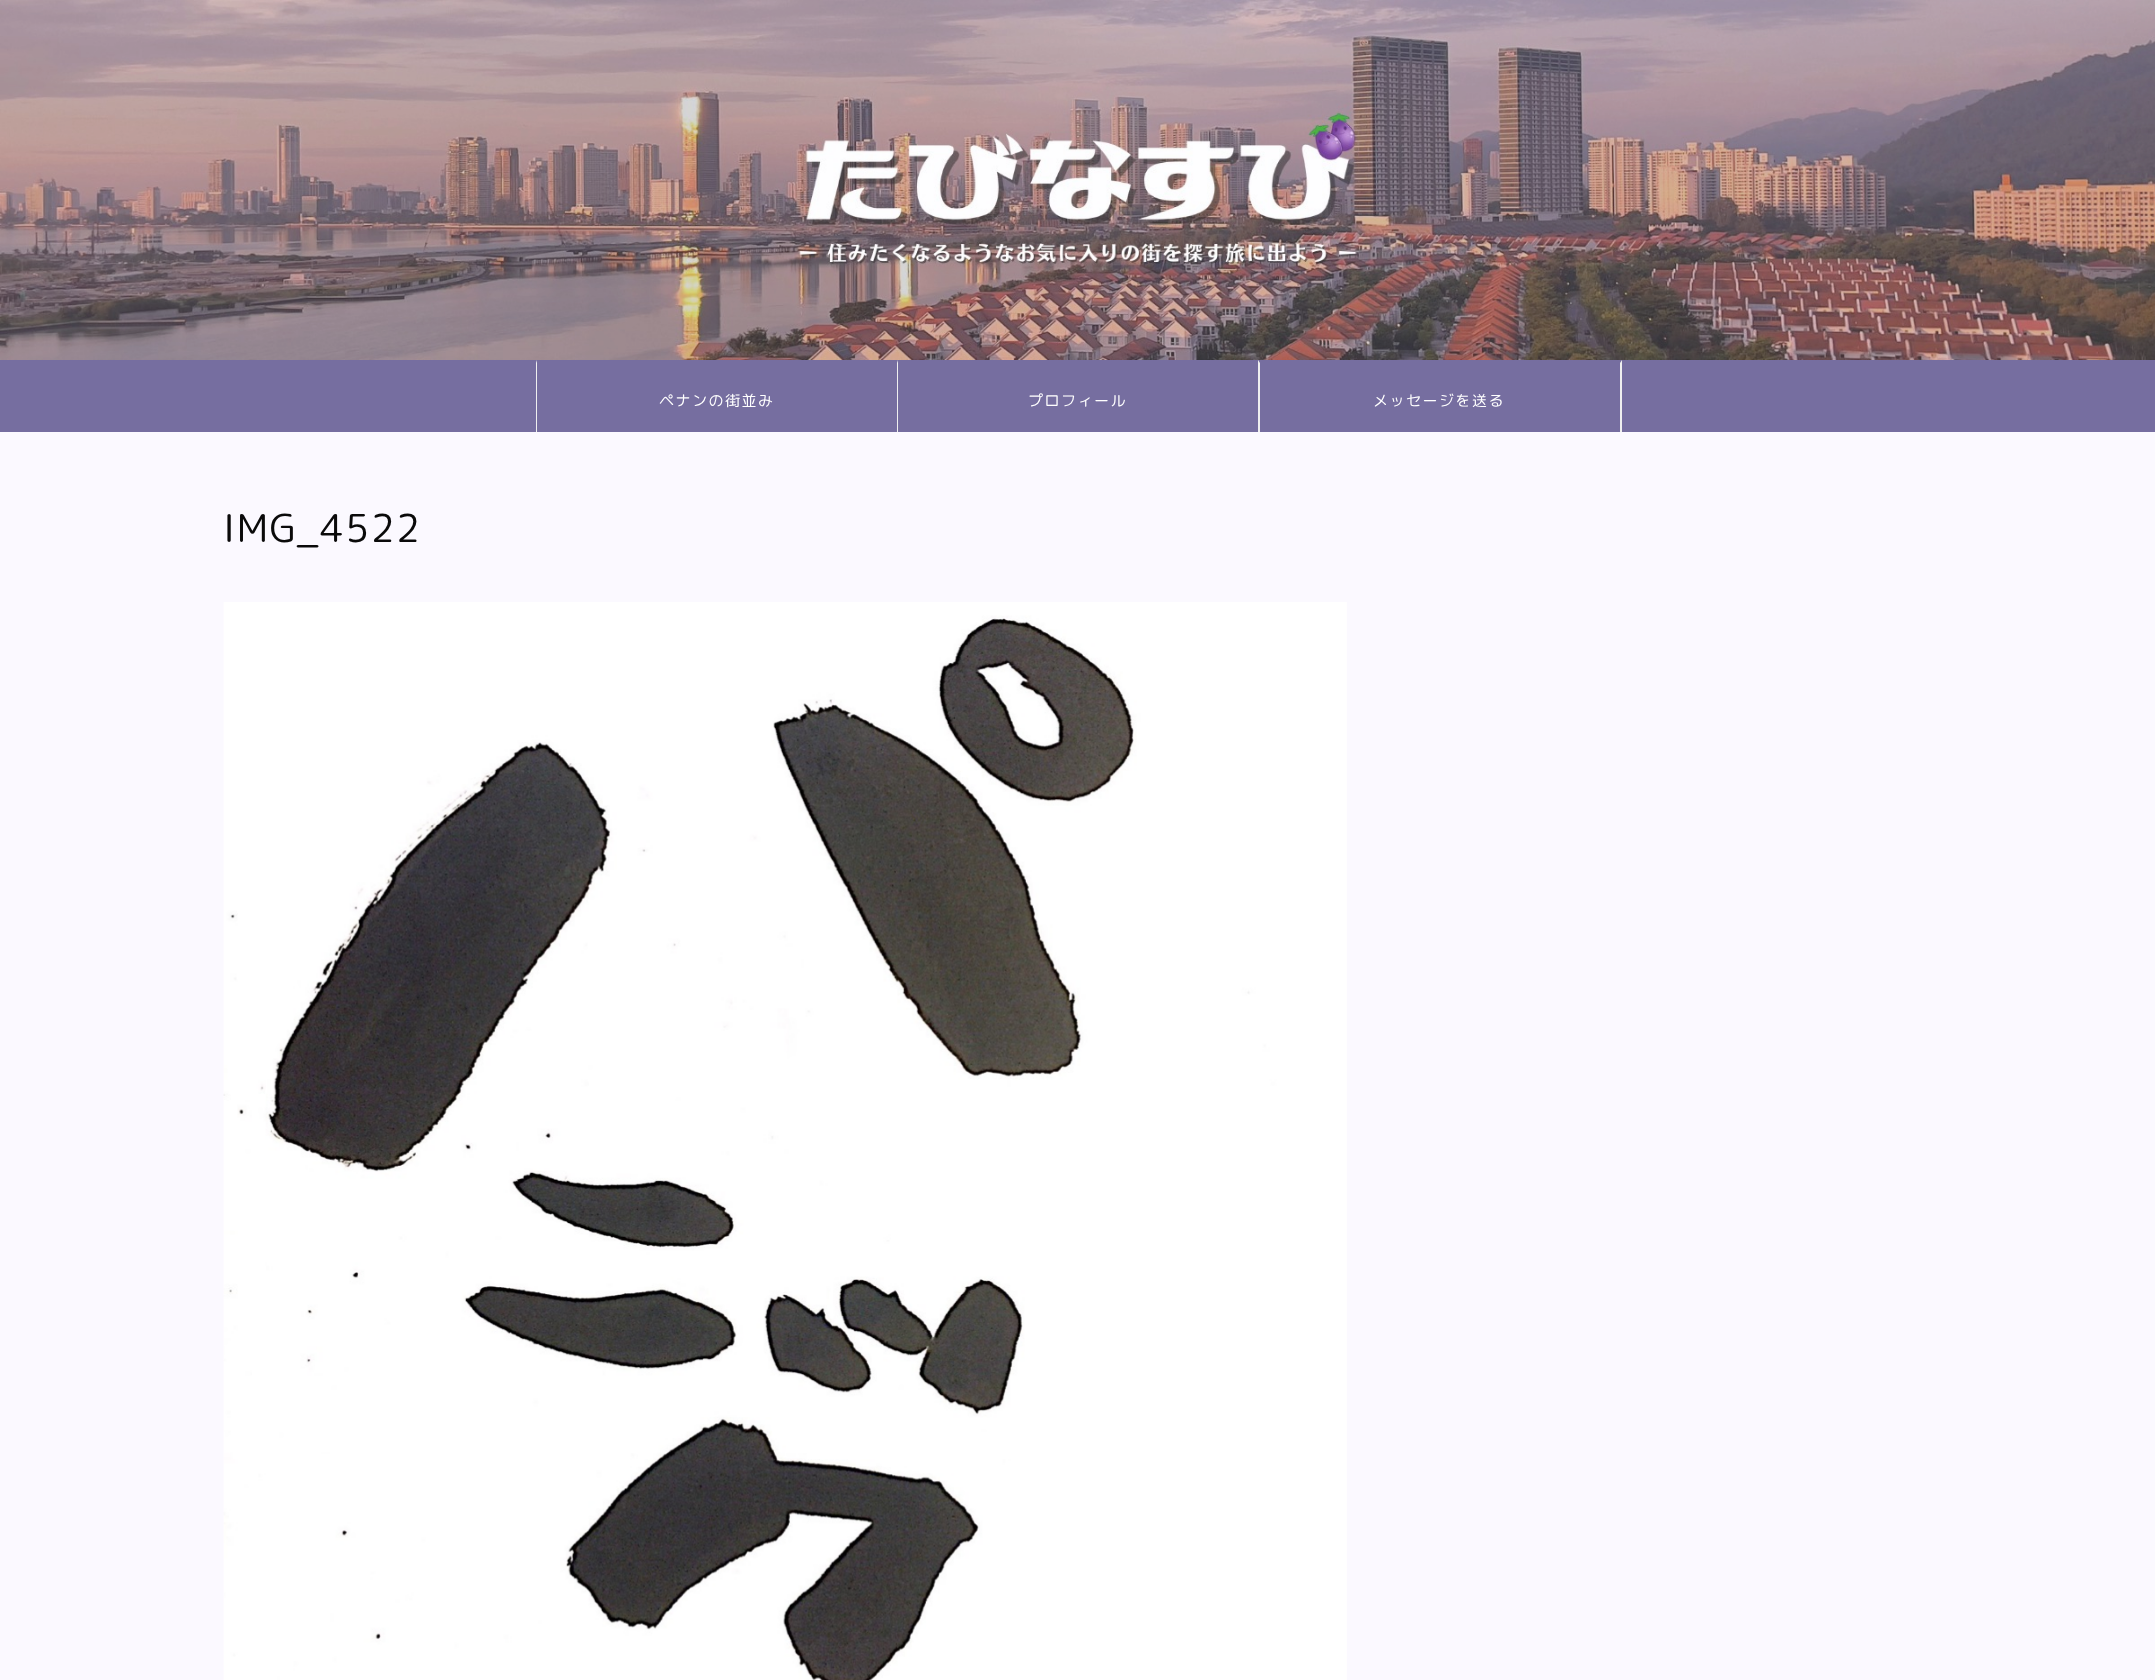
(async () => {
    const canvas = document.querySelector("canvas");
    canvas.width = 2155;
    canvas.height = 1680;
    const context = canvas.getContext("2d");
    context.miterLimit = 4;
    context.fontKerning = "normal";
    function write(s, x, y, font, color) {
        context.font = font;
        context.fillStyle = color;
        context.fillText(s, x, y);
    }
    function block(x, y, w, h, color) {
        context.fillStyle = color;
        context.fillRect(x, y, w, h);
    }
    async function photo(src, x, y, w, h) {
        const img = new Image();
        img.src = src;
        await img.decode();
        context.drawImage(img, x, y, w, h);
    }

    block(0, 0, 2155, 1680, "rgb(251, 249, 255)");
    await photo("media/1.png", 0, 0, 2155, 360);
    block(0, 360, 2155, 72, "rgb(118, 110, 160)");
    context.fillStyle = "rgb(239, 239, 239)";
    context.beginPath();
    context.moveTo(536, 432);
    context.lineTo(536, 360);
    context.lineTo(537, 363);
    context.lineTo(537, 432);
    context.closePath();
    context.fill();
    context.letterSpacing = "1.5px";
    write("ペナンの街並み", 659, 406, "15px 'Rounded Mplus 1c'", "rgb(255, 255, 255)");
    context.fillStyle = "rgb(239, 239, 239)";
    context.beginPath();
    context.moveTo(897, 432);
    context.lineTo(897, 360);
    context.lineTo(898, 363);
    context.lineTo(898, 432);
    context.closePath();
    context.fill();
    write("プロフィール", 1028, 406, "15px 'Rounded Mplus 1c'", "rgb(255, 255, 255)");
    context.fillStyle = "rgb(239, 239, 239)";
    context.beginPath();
    context.moveTo(1622, 360);
    context.lineTo(1622, 432);
    context.lineTo(1620, 432);
    context.lineTo(1620, 363);
    context.closePath();
    context.fill();
    context.beginPath();
    context.moveTo(1258, 432);
    context.lineTo(1258, 360);
    context.lineTo(1260, 363);
    context.lineTo(1260, 432);
    context.closePath();
    context.fill();
    write("メッセージを送る", 1373, 406, "15px 'Rounded Mplus 1c'", "rgb(255, 255, 255)");
    write("IMG_4522", 223, 542, "38.5px 'Rounded Mplus 1c'", "rgb(10, 10, 10)");
    await photo("media/2.png", 223, 602, 1124, 1078);
})();
